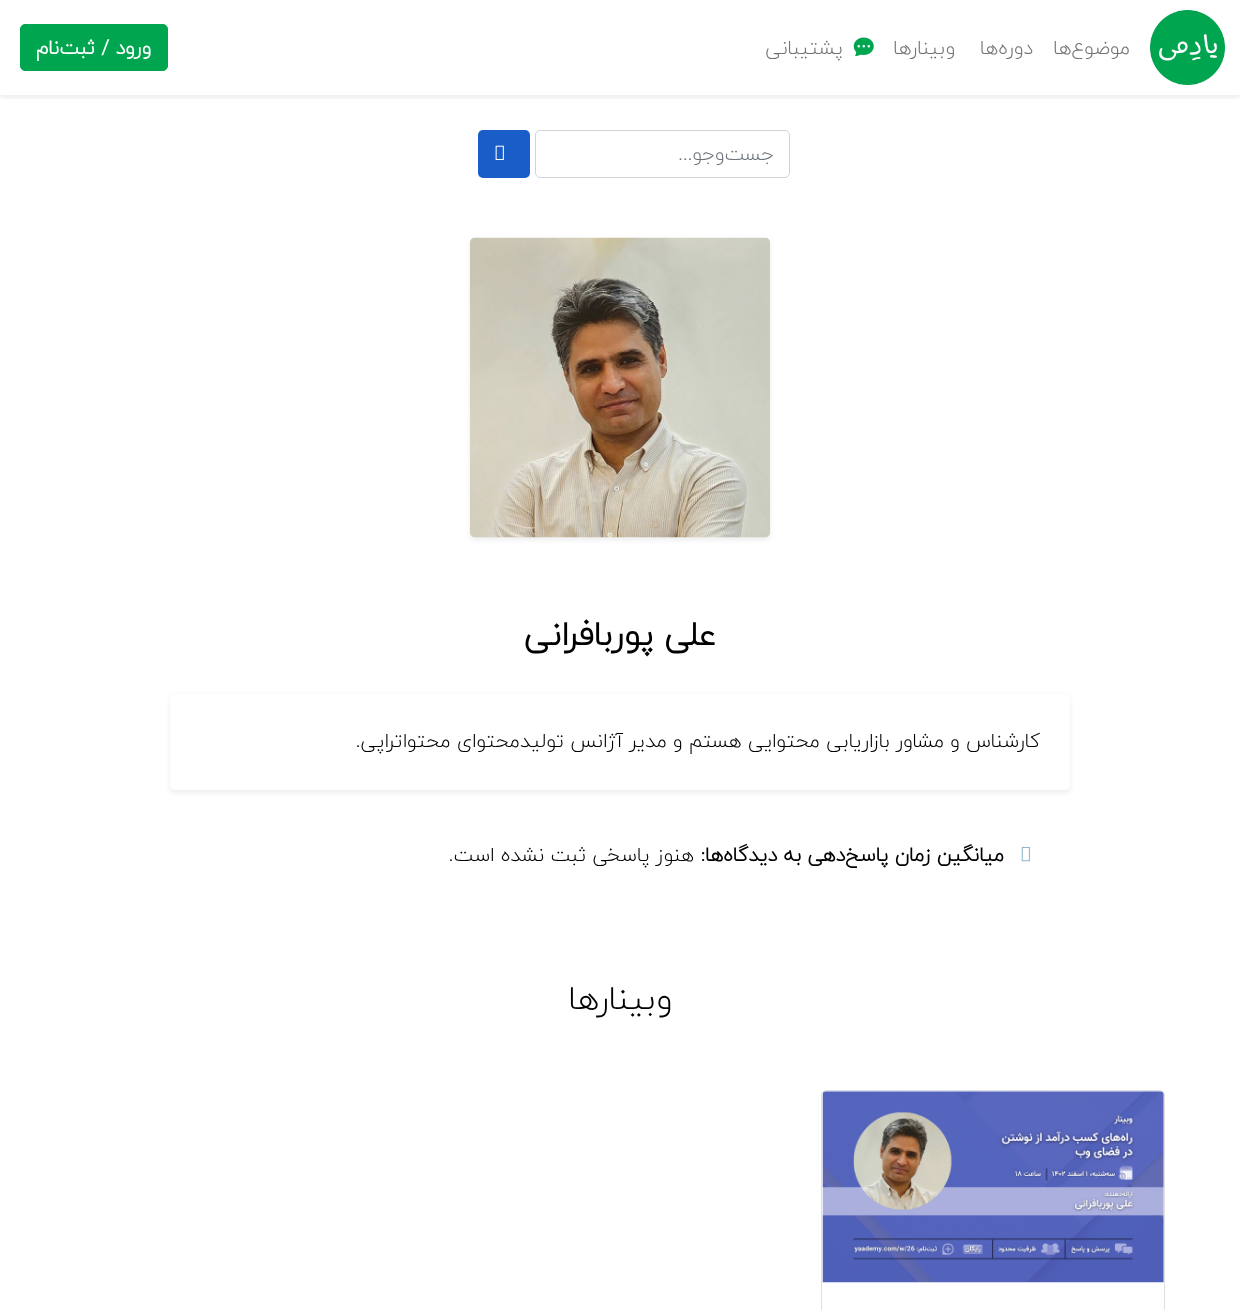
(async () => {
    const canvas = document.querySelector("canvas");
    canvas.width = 1240;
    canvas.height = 1310;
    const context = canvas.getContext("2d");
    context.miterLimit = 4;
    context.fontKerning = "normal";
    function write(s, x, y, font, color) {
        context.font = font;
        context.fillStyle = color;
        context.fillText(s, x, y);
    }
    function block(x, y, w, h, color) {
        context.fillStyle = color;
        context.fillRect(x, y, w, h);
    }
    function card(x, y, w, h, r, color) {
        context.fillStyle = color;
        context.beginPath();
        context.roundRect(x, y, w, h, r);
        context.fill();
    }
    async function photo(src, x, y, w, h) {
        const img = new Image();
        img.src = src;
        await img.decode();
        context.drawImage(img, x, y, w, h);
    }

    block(0, 0, 1240, 1310, "rgb(255, 255, 255)");
    context.save();
    context.beginPath();
    context.rect(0, 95, 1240, 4);
    context.clip();
    context.fillStyle = "rgba(0, 0, 0, 0.07)";
    context.filter = "blur(2.5px)";
    context.beginPath();
    context.rect(0, 3, 1240, 95);
    context.fill();
    context.filter = "none";
    context.restore();
    await photo("media/1.png", 1150, 10, 75, 75);
    context.direction = "rtl";
    write("موضوع‌ها", 1130, 54, "300 20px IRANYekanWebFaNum", "rgb(115, 115, 115)");
    write("دوره‌ها", 1033, 54, "300 20px IRANYekanWebFaNum", "rgb(115, 115, 115)");
    write("وبینارها", 955, 54, "300 20px IRANYekanWebFaNum", "rgb(115, 115, 115)");
    await photo("media/2.png", 853, 37, 21, 20);
    write("پشتیبانی", 843, 54, "300 20px IRANYekanWebFaNum", "rgb(115, 115, 115)");
    context.fillStyle = "rgb(0, 165, 80)";
    context.beginPath();
    context.roundRect(20.5, 24.5, 147, 46, 4.5);
    context.fill();
    context.strokeStyle = "rgb(0, 165, 80)";
    context.stroke();
    write("ورود / ثبت‌نام", 151, 54, "bold 20px IRANYekanWebFaNum", "rgb(255, 255, 255)");
    context.beginPath();
    context.roundRect(535.5, 130.5, 254, 47, 4.5);
    context.strokeStyle = "rgb(206, 212, 218)";
    context.stroke();
    write("جست‌وجو...", 774, 160, "300 20px IRANYekanWebFaNum", "rgb(108, 117, 125)");
    card(478, 130, 52, 48, 5, "rgb(25, 94, 200)");
    await photo("media/3.png", 495, 145, 9, 15);
    context.fillStyle = "rgba(0, 0, 0, 0.07)";
    context.filter = "blur(2.5px)";
    context.beginPath();
    context.roundRect(470, 240, 300, 300, 5);
    context.fill();
    context.filter = "none";
    await photo("media/4.png", 470, 237, 300, 301);
    write("علی پوربافرانی", 716, 645, "bold 33.5px IRANYekanWebFaNum", "rgb(0, 0, 0)");
    context.save();
    context.beginPath();
    context.moveTo(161, 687);
    context.lineTo(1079, 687);
    context.lineTo(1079, 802);
    context.lineTo(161, 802);
    context.closePath();
    context.moveTo(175, 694);
    context.lineTo(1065, 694);
    context.bezierCurveTo(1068, 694, 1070, 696, 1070, 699);
    context.lineTo(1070, 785);
    context.bezierCurveTo(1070, 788, 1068, 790, 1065, 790);
    context.lineTo(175, 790);
    context.bezierCurveTo(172, 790, 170, 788, 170, 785);
    context.lineTo(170, 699);
    context.bezierCurveTo(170, 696, 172, 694, 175, 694);
    context.closePath();
    context.clip("evenodd");
    context.fillStyle = "rgba(0, 0, 0, 0.07)";
    context.filter = "blur(2.5px)";
    context.beginPath();
    context.roundRect(170, 696, 900, 97, 5);
    context.fill();
    context.filter = "none";
    context.restore();
    write("کارشناس و مشاور بازاریابی محتوایی هستم و مدیر آژانس تولیدمحتوای محتواتراپی.", 1040, 747, "300 20px IRANYekanWebFaNum", "rgb(0, 0, 0)");
    await photo("media/5.png", 1021, 847, 9, 15);
    write("میانگین زمان پاسخ‌دهی به دیدگاه‌ها:", 1004, 861, "bold 20px IRANYekanWebFaNum", "rgb(0, 0, 0)");
    write("هنوز پاسخی ثبت نشده است.", 694, 861, "300 20px IRANYekanWebFaNum", "rgb(0, 0, 0)");
    write("وبینارها", 672, 1009, "300 33.5px IRANYekanWebFaNum", "rgb(0, 0, 0)");
    context.beginPath();
    context.roundRect(821.5, 1090.5, 343, 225, 4.5);
    context.strokeStyle = "rgb(223, 223, 223)";
    context.stroke();
    await photo("media/6.png", 822, 1091, 342, 192);
})();
